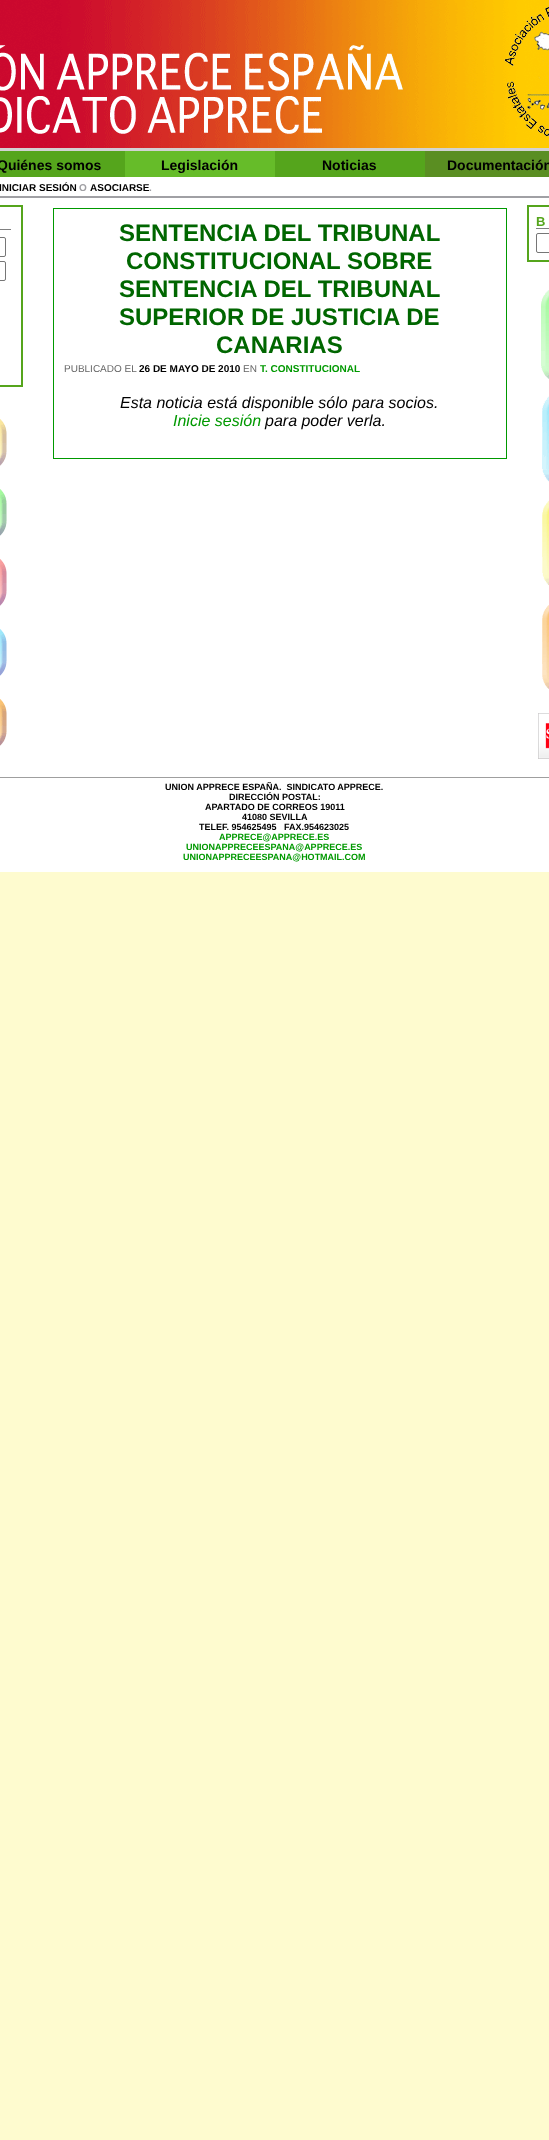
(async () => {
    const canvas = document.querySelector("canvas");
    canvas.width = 549;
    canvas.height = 2140;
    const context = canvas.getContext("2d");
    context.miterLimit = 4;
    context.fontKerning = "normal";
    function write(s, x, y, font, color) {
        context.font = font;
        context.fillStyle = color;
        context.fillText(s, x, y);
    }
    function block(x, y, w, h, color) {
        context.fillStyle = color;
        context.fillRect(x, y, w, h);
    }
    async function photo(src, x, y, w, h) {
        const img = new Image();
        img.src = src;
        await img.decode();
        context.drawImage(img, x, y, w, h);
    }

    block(0, 0, 549, 2140, "rgb(254, 251, 207)");
    block(0, 148, 549, 3, "rgb(210, 210, 210)");
    await photo("media/1.png", 0, 0, 549, 148);
    block(0, 177, 549, 695, "rgb(255, 255, 255)");
    block(0, 151, 125, 26, "rgb(85, 165, 28)");
    write("Quiénes somos", -3, 170, "bold 14px Liberation Sans", "rgb(0, 0, 0)");
    block(125, 151, 150, 26, "rgb(102, 188, 41)");
    write("Legislación", 161, 170, "bold 14px Liberation Sans", "rgb(0, 0, 0)");
    block(275, 151, 150, 26, "rgb(85, 165, 28)");
    write("Noticias", 322, 170, "bold 14px Liberation Sans", "rgb(0, 0, 0)");
    block(425, 151, 124, 26, "rgb(90, 142, 34)");
    write("Documentación", 447, 170, "bold 14px Liberation Sans", "rgb(0, 0, 0)");
    write("INICIAR SESIÓN", -1, 191, "bold 10px Liberation Sans", "rgb(0, 0, 0)");
    write("O", 79, 191, "bold 10px Liberation Sans", "rgb(160, 160, 164)");
    write("ASOCIARSE", 90, 191, "bold 10px Liberation Sans", "rgb(0, 0, 0)");
    write(".", 149, 191, "bold 10px Liberation Sans", "rgb(160, 160, 164)");
    block(0, 196, 549, 2, "rgb(160, 160, 164)");
    context.strokeStyle = "rgb(85, 165, 28)";
    context.lineWidth = 2;
    context.strokeRect(-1, 206, 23, 180);
    block(0, 229, 11, 1, "rgb(128, 128, 128)");
    context.beginPath();
    context.roundRect(-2.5, 237.5, 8, 19, 1.5);
    context.strokeStyle = "rgb(118, 118, 118)";
    context.lineWidth = 1;
    context.stroke();
    context.beginPath();
    context.roundRect(-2.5, 261.5, 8, 19, 1.5);
    context.stroke();
    await photo("media/2.png", 0, 419, 7, 47);
    await photo("media/3.png", 0, 489, 7, 47);
    await photo("media/4.png", 0, 559, 7, 47);
    await photo("media/5.png", 0, 629, 7, 47);
    await photo("media/6.png", 0, 699, 7, 47);
    context.strokeStyle = "rgb(85, 165, 28)";
    context.lineWidth = 2;
    context.strokeRect(528, 206, 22, 55);
    write("B", 536, 226, "bold 13px Liberation Sans", "rgb(85, 165, 28)");
    block(536, 228, 13, 1, "rgb(128, 128, 128)");
    context.beginPath();
    context.roundRect(536.5, 233.5, 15, 19, 1.5);
    context.strokeStyle = "rgb(118, 118, 118)";
    context.lineWidth = 1;
    context.stroke();
    await photo("media/7.png", 541, 290, 8, 89);
    await photo("media/8.png", 542, 396, 7, 86);
    await photo("media/9.png", 542, 500, 7, 86);
    await photo("media/10.png", 542, 605, 7, 84);
    await photo("media/11.png", 538, 713, 11, 46);
    context.strokeStyle = "rgb(0, 153, 0)";
    context.strokeRect(53.5, 208.5, 453, 250);
    write("SENTENCIA DEL TRIBUNAL", 119, 241, "bold 24px Liberation Sans", "rgb(0, 102, 0)");
    write("CONSTITUCIONAL SOBRE", 126, 269, "bold 24px Liberation Sans", "rgb(0, 102, 0)");
    write("SENTENCIA DEL TRIBUNAL", 119, 297, "bold 24px Liberation Sans", "rgb(0, 102, 0)");
    write("SUPERIOR DE JUSTICIA DE", 119, 325, "bold 24px Liberation Sans", "rgb(0, 102, 0)");
    write("CANARIAS", 216, 353, "bold 24px Liberation Sans", "rgb(0, 102, 0)");
    write("PUBLICADO EL", 64, 372, "10px Liberation Sans", "rgb(102, 102, 102)");
    write("26 DE MAYO DE 2010", 139, 372, "bold 10px Liberation Sans", "rgb(0, 0, 0)");
    write("EN", 243, 372, "10px Liberation Sans", "rgb(102, 102, 102)");
    write("T. CONSTITUCIONAL", 260, 372, "bold 10px Liberation Sans", "rgb(0, 153, 0)");
    write("Esta noticia está disponible sólo para socios.", 120, 408, "italic 16px Liberation Sans", "rgb(0, 0, 0)");
    write("Inicie sesión", 173, 426, "italic 16px Liberation Sans", "rgb(0, 153, 0)");
    write("para poder verla.", 265, 426, "italic 16px Liberation Sans", "rgb(0, 0, 0)");
    block(0, 777, 549, 1, "rgb(159, 159, 159)");
    write("UNION APPRECE ESPAÑA.  SINDICATO APPRECE.", 165, 790, "bold 9px Liberation Sans", "rgb(0, 0, 0)");
    write("DIRECCIÓN POSTAL:", 229, 800, "bold 9px Liberation Sans", "rgb(0, 0, 0)");
    write("APARTADO DE CORREOS 19011", 205, 810, "bold 9px Liberation Sans", "rgb(0, 0, 0)");
    write("41080 SEVILLA", 242, 820, "bold 9px Liberation Sans", "rgb(0, 0, 0)");
    write("TELEF. 954625495   FAX.954623025", 199, 830, "bold 9px Liberation Sans", "rgb(0, 0, 0)");
    write("APPRECE@APPRECE.ES", 219, 840, "bold 9px Liberation Sans", "rgb(0, 153, 0)");
    write("UNIONAPPRECEESPANA@APPRECE.ES", 186, 850, "bold 9px Liberation Sans", "rgb(0, 153, 0)");
    write("UNIONAPPRECEESPANA@HOTMAIL.COM", 183, 860, "bold 9px Liberation Sans", "rgb(0, 153, 0)");
})();
